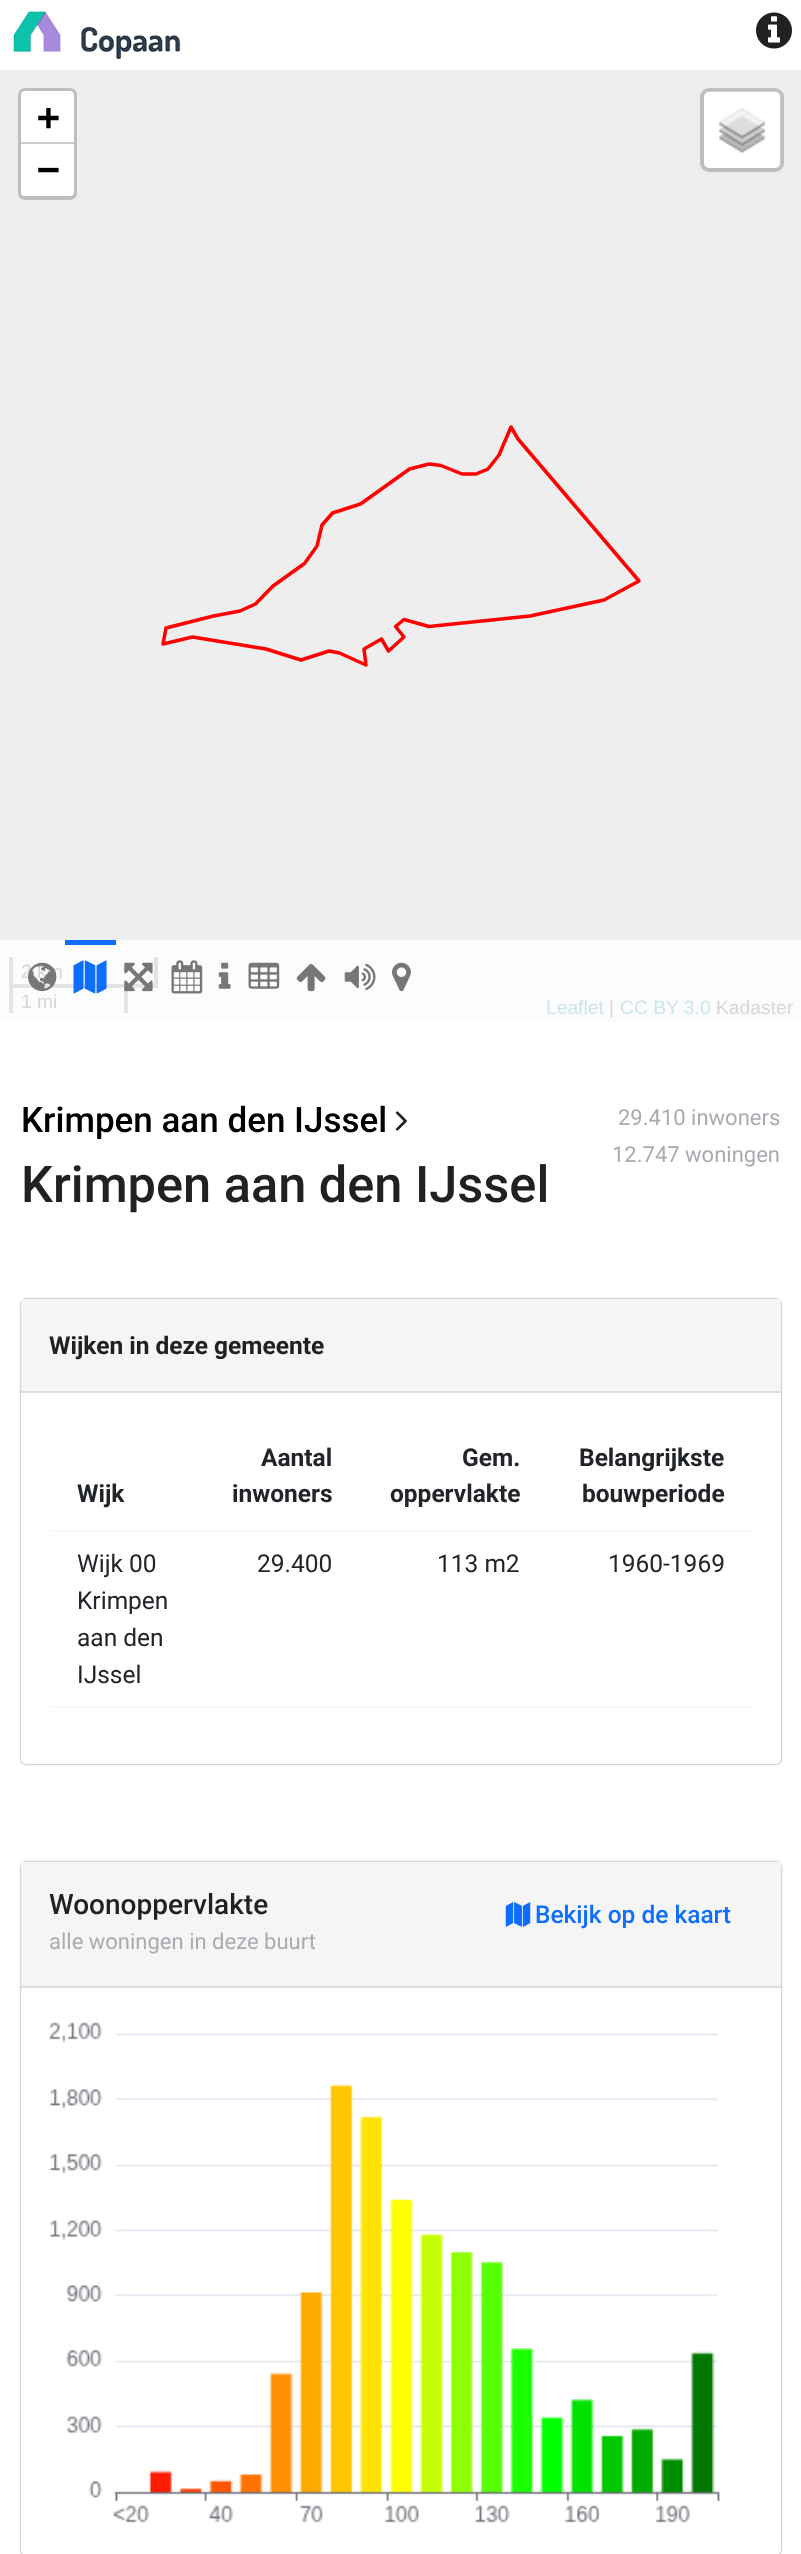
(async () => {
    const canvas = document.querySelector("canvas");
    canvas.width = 801;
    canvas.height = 2554;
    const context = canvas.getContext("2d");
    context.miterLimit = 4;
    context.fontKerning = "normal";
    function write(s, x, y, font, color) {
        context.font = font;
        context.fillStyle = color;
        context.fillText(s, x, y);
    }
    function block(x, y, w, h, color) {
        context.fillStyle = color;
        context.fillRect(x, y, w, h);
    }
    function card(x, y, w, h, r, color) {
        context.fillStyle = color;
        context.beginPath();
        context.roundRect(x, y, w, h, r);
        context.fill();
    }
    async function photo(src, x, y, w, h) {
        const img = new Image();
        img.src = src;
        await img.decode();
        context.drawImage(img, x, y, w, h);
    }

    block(0, 0, 801, 2554, "rgb(255, 255, 255)");
    await photo("media/1.png", 13, 11, 168, 49);
    await photo("media/2.png", 756, 12, 36, 37);
    block(0, 70, 801, 870, "rgb(238, 238, 238)");
    block(0, 940, 801, 82, "rgb(252, 252, 252)");
    context.beginPath();
    context.roundRect(20, 90, 55, 108, 5);
    context.strokeStyle = "rgb(190, 190, 190)";
    context.lineWidth = 4;
    context.stroke();
    context.fillStyle = "rgb(255, 255, 255)";
    context.beginPath();
    context.roundRect(21, 91, 53, 53, [4, 4, 0, 0]);
    context.fill();
    block(21, 142, 53, 2, "rgb(204, 204, 204)");
    write("+", 37, 130, "bold 38px DejaVu Sans Mono", "rgb(0, 0, 0)");
    context.fillStyle = "rgb(255, 255, 255)";
    context.beginPath();
    context.roundRect(21, 144, 53, 52, [0, 0, 4, 4]);
    context.fill();
    write("−", 37, 182, "bold 38px DejaVu Sans Mono", "rgb(0, 0, 0)");
    card(704, 91, 77, 77, 5, "rgb(255, 255, 255)");
    context.beginPath();
    context.roundRect(702, 90, 80, 80, 7);
    context.strokeStyle = "rgba(0, 0, 0, 0.2)";
    context.stroke();
    await photo("media/3.png", 718, 108, 48, 45);
    block(154, 957, 4, 30, "rgb(228, 228, 228)");
    block(131, 984, 27, 4, "rgb(228, 228, 228)");
    block(9, 957, 4, 30, "rgb(228, 228, 228)");
    write("2 km", 21, 978, "19.25px Liberation Sans", "rgb(214, 214, 214)");
    block(9, 984, 119, 4, "rgb(228, 228, 228)");
    block(124, 984, 4, 29, "rgb(228, 228, 228)");
    block(9, 984, 4, 29, "rgb(228, 228, 228)");
    write("1 mi", 21, 1008, "19.25px Liberation Sans", "rgb(214, 214, 214)");
    write("Leaflet", 546, 1014, "19.25px Liberation Sans", "rgb(204, 228, 238)");
    write("|", 609, 1014, "19.25px Liberation Sans", "rgb(214, 214, 214)");
    write("CC BY 3.0", 620, 1014, "19.25px Liberation Sans", "rgb(204, 228, 238)");
    write("Kadaster", 716, 1014, "19.25px Liberation Sans", "rgb(214, 214, 214)");
    context.beginPath();
    context.moveTo(166, 628);
    context.lineTo(163, 644);
    context.lineTo(192.5, 637);
    context.lineTo(266, 649);
    context.lineTo(301, 660);
    context.lineTo(329, 651);
    context.lineTo(339.5, 653);
    context.lineTo(366, 665);
    context.lineTo(364, 649);
    context.lineTo(381.5, 639);
    context.lineTo(388.5, 651);
    context.lineTo(404, 637);
    context.lineTo(395.5, 626.5);
    context.lineTo(404, 619.5);
    context.lineTo(429, 626.5);
    context.lineTo(530, 616);
    context.lineTo(604, 600);
    context.lineTo(639, 581);
    context.lineTo(518, 439);
    context.lineTo(511, 427);
    context.lineTo(499, 455);
    context.lineTo(488, 469);
    context.lineTo(476, 474);
    context.lineTo(462, 474);
    context.lineTo(441, 465.5);
    context.lineTo(429, 464);
    context.lineTo(409.5, 469);
    context.lineTo(360.5, 504);
    context.lineTo(332.5, 513);
    context.lineTo(322, 525);
    context.lineTo(317, 546);
    context.lineTo(304.5, 563.5);
    context.lineTo(273, 586);
    context.lineTo(255.5, 604);
    context.lineTo(240, 611);
    context.lineTo(213.5, 616);
    context.closePath();
    context.strokeStyle = "rgb(255, 0, 0)";
    context.lineWidth = 3.5;
    context.lineCap = "round";
    context.lineJoin = "round";
    context.stroke();
    await photo("media/4.png", 28, 962, 29, 30);
    block(65, 940, 51, 5, "rgb(13, 110, 253)");
    await photo("media/5.png", 73, 960, 34, 34);
    await photo("media/6.png", 124, 962, 29, 30);
    await photo("media/7.png", 171, 960, 32, 34);
    await photo("media/8.png", 218, 962, 13, 27);
    await photo("media/9.png", 248, 962, 32, 27);
    await photo("media/10.png", 296, 964, 30, 28);
    await photo("media/11.png", 344, 963, 32, 27);
    await photo("media/12.png", 392, 962, 19, 30);
    write("Krimpen aan den IJssel", 21, 1132, "500 35px Roboto", "rgb(0, 0, 0)");
    await photo("media/13.png", 395, 1111, 12, 20);
    write("29.410 inwoners", 618, 1125, "22px Roboto", "rgb(167, 172, 177)");
    write("12.747 woningen", 612, 1162, "22px Roboto", "rgb(167, 172, 177)");
    write("Krimpen aan den IJssel", 21, 1202, "500 50.5px Roboto", "rgb(33, 33, 33)");
    context.fillStyle = "rgba(0, 0, 0, 0.5)";
    context.filter = "blur(1px)";
    context.beginPath();
    context.roundRect(21, 1299, 760, 465, 5);
    context.fill();
    context.filter = "none";
    card(21, 1299, 760, 465, 5, "rgb(255, 255, 255)");
    block(49, 1530, 501, 2, "rgb(250, 250, 250)");
    block(201, 1530, 2, 2, "rgb(245, 245, 246)");
    block(359, 1530, 2, 2, "rgb(245, 245, 246)");
    block(49, 1706, 501, 2, "rgb(250, 250, 250)");
    block(201, 1706, 2, 2, "rgb(245, 245, 246)");
    block(359, 1706, 2, 2, "rgb(245, 245, 246)");
    block(21, 1299, 760, 92, "rgb(245, 245, 245)");
    block(21, 1391, 760, 2, "rgb(221, 221, 221)");
    write("Wijken in deze gemeente", 49, 1354, "bold 24.5px Roboto", "rgb(33, 33, 33)");
    write("Wijk", 77, 1502, "bold 24.5px Roboto", "rgb(33, 37, 41)");
    write("Aantal", 261, 1466, "bold 24.5px Roboto", "rgb(33, 37, 41)");
    write("inwoners", 232, 1502, "bold 24.5px Roboto", "rgb(33, 37, 41)");
    write("Gem.", 462, 1466, "bold 24.5px Roboto", "rgb(33, 37, 41)");
    write("oppervlakte", 390, 1502, "bold 24.5px Roboto", "rgb(33, 37, 41)");
    block(548, 1530, 206, 2, "rgb(249, 250, 250)");
    block(548, 1530, 2, 2, "rgb(244, 245, 246)");
    write("Belangrijkste", 579, 1466, "bold 24.5px Roboto", "rgb(33, 37, 41)");
    write("bouwperiode", 582, 1502, "bold 24.5px Roboto", "rgb(33, 37, 41)");
    write("Wijk 00", 77, 1572, "24.5px Roboto", "rgb(33, 37, 41)");
    write("Krimpen", 77, 1609, "24.5px Roboto", "rgb(33, 37, 41)");
    write("aan den", 77, 1646, "24.5px Roboto", "rgb(33, 37, 41)");
    write("IJssel", 77, 1683, "24.5px Roboto", "rgb(33, 37, 41)");
    write("29.400", 257, 1572, "24.5px Roboto", "rgb(33, 37, 41)");
    write("113 m2", 437, 1572, "24.5px Roboto", "rgb(33, 37, 41)");
    block(548, 1706, 206, 2, "rgb(249, 250, 250)");
    block(548, 1706, 2, 2, "rgb(244, 245, 246)");
    write("1960-1969", 608, 1572, "24.5px Roboto", "rgb(33, 37, 41)");
    context.fillStyle = "rgba(0, 0, 0, 0.5)";
    context.filter = "blur(1px)";
    context.beginPath();
    context.roundRect(21, 1862, 760, 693, 5);
    context.fill();
    context.filter = "none";
    card(21, 1862, 760, 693, 5, "rgb(255, 255, 255)");
    block(21, 1862, 760, 124, "rgb(245, 245, 245)");
    block(21, 1986, 760, 2, "rgb(221, 221, 221)");
    write("Woonoppervlakte", 49, 1914, "500 28px Roboto", "rgb(33, 33, 33)");
    await photo("media/14.png", 505, 1902, 26, 25);
    write("Bekijk op de kaart", 535, 1923, "500 24.5px Roboto", "rgb(13, 110, 253)");
    write("alle woningen in deze buurt", 49, 1949, "22px Roboto", "rgb(167, 172, 177)");
    await photo("media/15.png", 49, 2022, 671, 501);
})();
